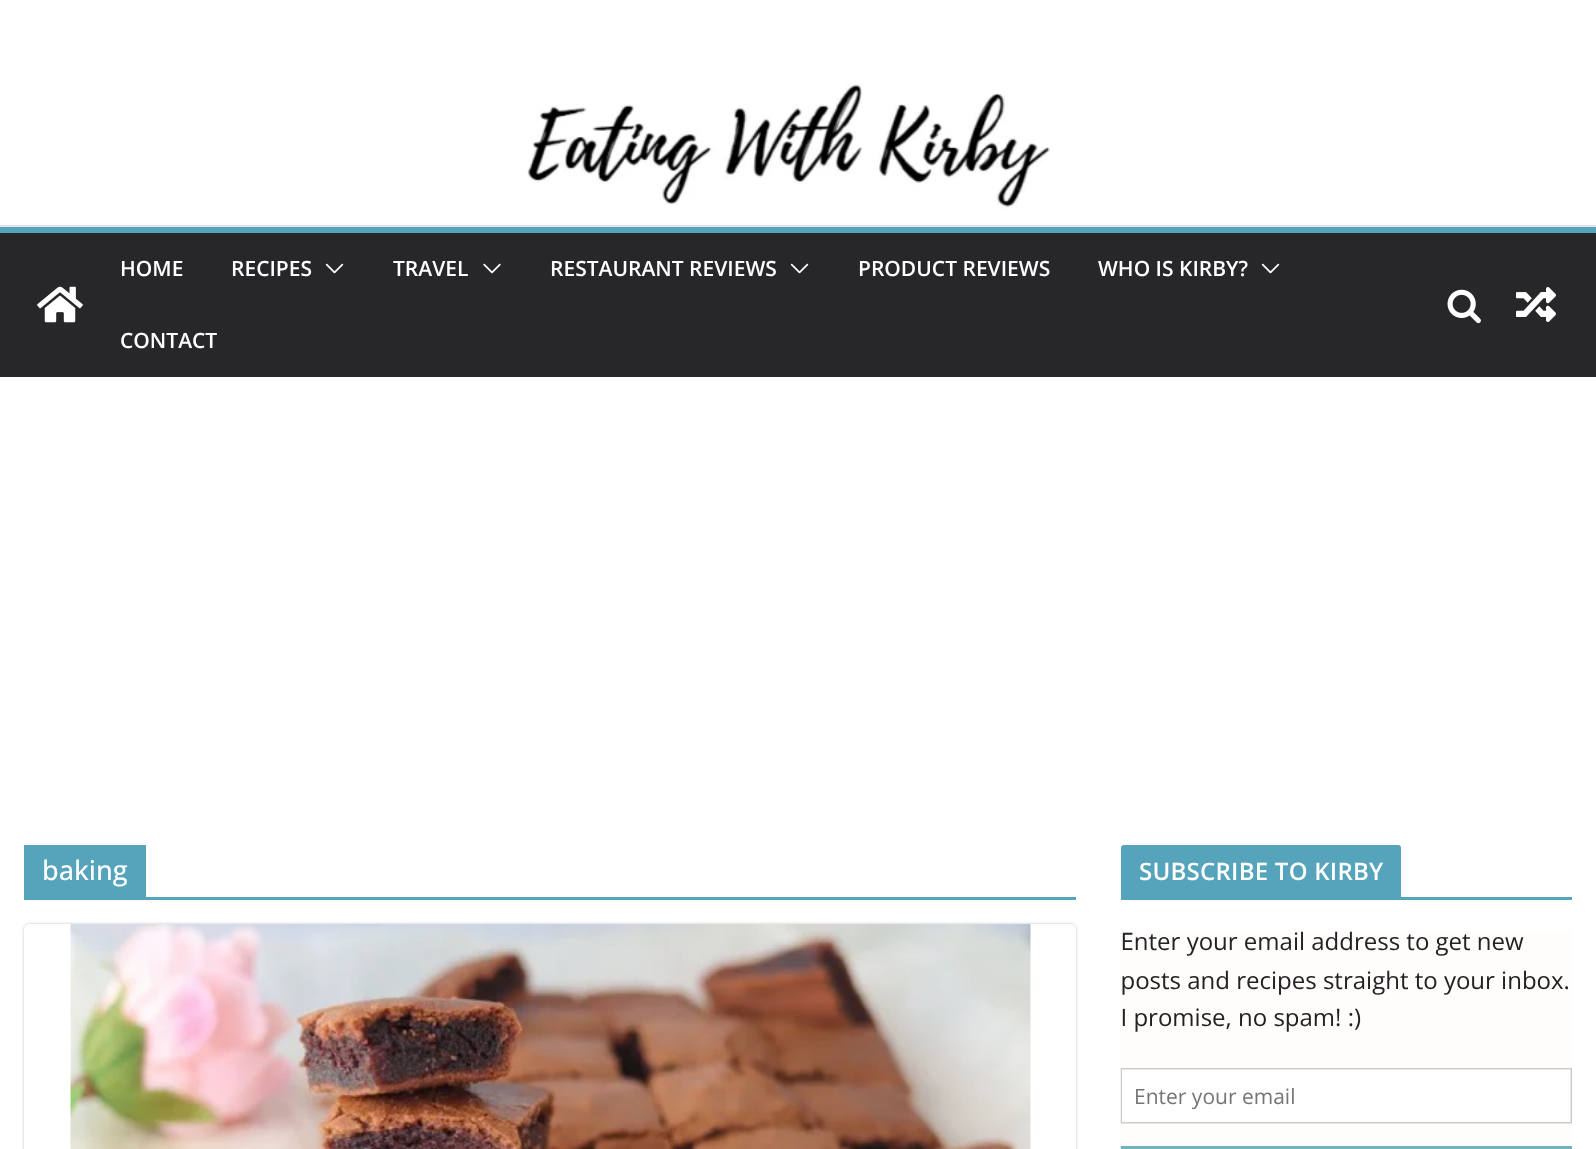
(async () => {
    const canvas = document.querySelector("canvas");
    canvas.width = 1596;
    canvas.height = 1149;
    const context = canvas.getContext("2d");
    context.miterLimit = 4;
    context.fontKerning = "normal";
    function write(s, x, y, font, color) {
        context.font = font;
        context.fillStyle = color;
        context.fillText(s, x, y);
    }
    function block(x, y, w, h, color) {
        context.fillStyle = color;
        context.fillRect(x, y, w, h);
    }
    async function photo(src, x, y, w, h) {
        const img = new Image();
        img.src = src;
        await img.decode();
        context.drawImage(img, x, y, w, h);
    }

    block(0, 0, 1596, 1149, "rgb(255, 255, 255)");
    await photo("media/1.png", 527, 83, 523, 126);
    block(0, 225, 1596, 2, "rgb(228, 228, 231)");
    block(0, 233, 1596, 144, "rgb(39, 39, 42)");
    block(0, 227, 1596, 6, "rgb(86, 164, 188)");
    await photo("media/2.png", 37, 286, 46, 37);
    write("HOME", 120, 276, "600 21px Open Sans", "rgb(255, 255, 255)");
    write("RECIPES", 231, 276, "600 21px Open Sans", "rgb(255, 255, 255)");
    await photo("media/3.png", 325, 263, 19, 11);
    write("TRAVEL", 393, 276, "600 21px Open Sans", "rgb(255, 255, 255)");
    await photo("media/4.png", 483, 263, 18, 11);
    write("RESTAURANT REVIEWS", 550, 276, "600 21px Open Sans", "rgb(255, 255, 255)");
    await photo("media/3.png", 790, 263, 19, 11);
    write("PRODUCT REVIEWS", 858, 276, "600 21px Open Sans", "rgb(255, 255, 255)");
    write("WHO IS KIRBY?", 1098, 276, "600 21px Open Sans", "rgb(255, 255, 255)");
    await photo("media/3.png", 1261, 263, 19, 11);
    write("CONTACT", 120, 348, "600 21px Open Sans", "rgb(255, 255, 255)");
    await photo("media/5.png", 1447, 289, 34, 35);
    await photo("media/6.png", 1516, 287, 40, 35);
    block(24, 897, 1052, 3, "rgb(86, 164, 188)");
    block(24, 845, 122, 52, "rgb(86, 164, 188)");
    write("baking", 42, 880, "500 27px Open Sans", "rgb(255, 255, 255)");
    context.save();
    context.beginPath();
    context.moveTo(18, 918);
    context.lineTo(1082, 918);
    context.lineTo(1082, 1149);
    context.lineTo(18, 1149);
    context.closePath();
    context.moveTo(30, 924);
    context.lineTo(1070, 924);
    context.bezierCurveTo(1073.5, 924, 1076, 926.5, 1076, 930);
    context.lineTo(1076, 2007);
    context.bezierCurveTo(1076, 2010.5, 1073.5, 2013, 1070, 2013);
    context.lineTo(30, 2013);
    context.bezierCurveTo(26.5, 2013, 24, 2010.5, 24, 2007);
    context.lineTo(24, 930);
    context.bezierCurveTo(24, 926.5, 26.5, 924, 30, 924);
    context.closePath();
    context.clip("evenodd");
    context.fillStyle = "rgba(0, 0, 0, 0.24)";
    context.filter = "blur(1.5px)";
    context.beginPath();
    context.roundRect(24, 924, 1052, 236, 6);
    context.fill();
    context.filter = "none";
    context.restore();
    await photo("media/7.png", 70, 924, 961, 225);
    block(1121, 897, 451, 3, "rgb(86, 164, 188)");
    context.beginPath();
    context.roundRect(1121, 845, 280, 52, [3, 3, 0, 0]);
    context.fill();
    context.letterSpacing = "0.25px";
    write("SUBSCRIBE TO KIRBY", 1139, 880, "600 24px Open Sans", "rgb(255, 255, 255)");
    await photo("media/8.png", 1120, 931, 452, 218);
})();
